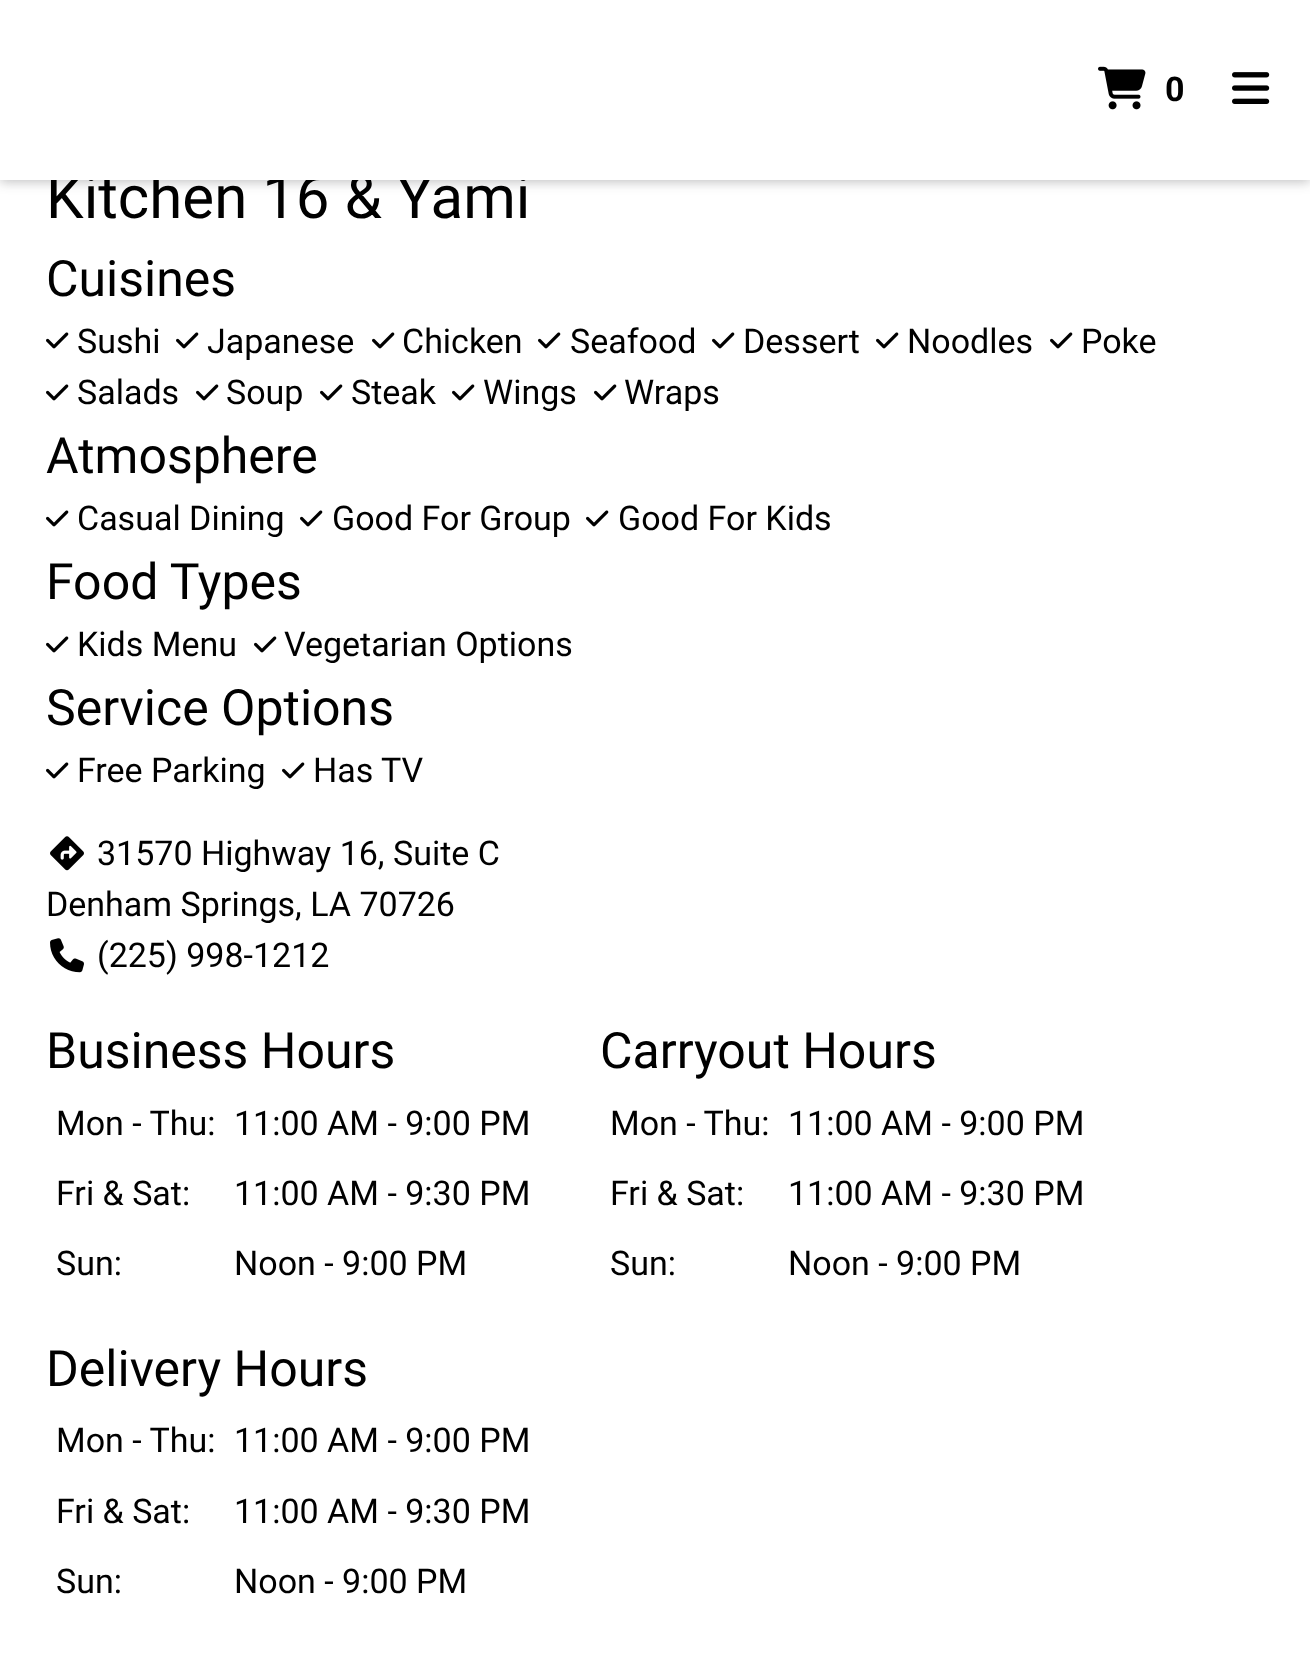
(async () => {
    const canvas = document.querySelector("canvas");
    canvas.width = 1310;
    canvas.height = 1669;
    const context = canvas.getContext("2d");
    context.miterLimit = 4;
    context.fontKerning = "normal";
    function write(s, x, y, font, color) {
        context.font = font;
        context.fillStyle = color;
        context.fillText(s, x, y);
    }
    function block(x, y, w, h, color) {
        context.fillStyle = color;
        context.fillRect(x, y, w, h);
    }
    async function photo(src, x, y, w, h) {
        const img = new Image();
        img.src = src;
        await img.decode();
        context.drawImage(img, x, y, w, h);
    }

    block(0, 0, 1310, 1669, "rgb(255, 255, 255)");
    context.fillStyle = "rgba(32, 33, 36, 0.28)";
    context.filter = "blur(6px)";
    context.beginPath();
    context.rect(0, 2, 1310, 180);
    context.fill();
    context.filter = "none";
    write("Kitchen 16 & Yami", 46, 218, "60px Roboto", "rgb(0, 0, 0)");
    block(0, 0, 1310, 180, "rgb(255, 255, 255)");
    await photo("media/1.png", 1098, 66, 48, 44);
    write("0", 1165, 101, "bold 34px Roboto", "rgb(0, 0, 0)");
    await photo("media/2.png", 1232, 72, 38, 32);
    write("Cuisines", 46, 296, "50px Roboto", "rgb(0, 0, 0)");
    await photo("media/3.png", 46, 332, 23, 17);
    write("Sushi", 77, 353, "34px Roboto", "rgb(0, 0, 0)");
    await photo("media/3.png", 176, 332, 23, 17);
    write("Japanese", 207, 353, "34px Roboto", "rgb(0, 0, 0)");
    await photo("media/3.png", 372, 332, 23, 17);
    write("Chicken", 402, 353, "34px Roboto", "rgb(0, 0, 0)");
    await photo("media/3.png", 538, 332, 23, 17);
    write("Seafood", 570, 353, "34px Roboto", "rgb(0, 0, 0)");
    await photo("media/3.png", 712, 332, 23, 17);
    write("Dessert", 743, 353, "34px Roboto", "rgb(0, 0, 0)");
    await photo("media/3.png", 876, 332, 23, 17);
    write("Noodles", 907, 353, "34px Roboto", "rgb(0, 0, 0)");
    await photo("media/3.png", 1050, 332, 23, 17);
    write("Poke", 1081, 353, "34px Roboto", "rgb(0, 0, 0)");
    await photo("media/3.png", 46, 384, 23, 17);
    write("Salads", 77, 404, "34px Roboto", "rgb(0, 0, 0)");
    await photo("media/3.png", 196, 384, 23, 17);
    write("Soup", 226, 404, "34px Roboto", "rgb(0, 0, 0)");
    await photo("media/3.png", 320, 384, 23, 17);
    write("Steak", 351, 404, "34px Roboto", "rgb(0, 0, 0)");
    await photo("media/3.png", 452, 384, 23, 17);
    write("Wings", 483, 404, "34px Roboto", "rgb(0, 0, 0)");
    await photo("media/3.png", 594, 384, 23, 17);
    write("Wraps", 624, 404, "34px Roboto", "rgb(0, 0, 0)");
    write("Atmosphere", 46, 473, "50px Roboto", "rgb(0, 0, 0)");
    await photo("media/3.png", 46, 510, 23, 17);
    write("Casual Dining", 77, 530, "34px Roboto", "rgb(0, 0, 0)");
    await photo("media/3.png", 300, 510, 23, 17);
    write("Good For Group", 332, 530, "34px Roboto", "rgb(0, 0, 0)");
    await photo("media/3.png", 586, 510, 23, 17);
    write("Good For Kids", 618, 530, "34px Roboto", "rgb(0, 0, 0)");
    write("Food Types", 46, 599, "50px Roboto", "rgb(0, 0, 0)");
    await photo("media/3.png", 46, 636, 23, 17);
    write("Kids Menu", 77, 656, "34px Roboto", "rgb(0, 0, 0)");
    await photo("media/3.png", 254, 636, 23, 17);
    write("Vegetarian Options", 284, 656, "34px Roboto", "rgb(0, 0, 0)");
    write("Service Options", 46, 725, "50px Roboto", "rgb(0, 0, 0)");
    await photo("media/3.png", 46, 762, 23, 17);
    write("Free Parking", 77, 782, "34px Roboto", "rgb(0, 0, 0)");
    await photo("media/3.png", 282, 762, 23, 17);
    write("Has TV", 313, 782, "34px Roboto", "rgb(0, 0, 0)");
    await photo("media/4.png", 50, 836, 34, 35);
    write("31570 Highway 16, Suite C", 97, 865, "34px Roboto", "rgb(0, 0, 0)");
    write("Denham Springs, LA 70726", 46, 916, "34px Roboto", "rgb(0, 0, 0)");
    await photo("media/5.png", 50, 938, 34, 35);
    write("(225) 998-1212", 97, 967, "34px Roboto", "rgb(0, 0, 0)");
    write("Business Hours", 46, 1068, "50px Roboto", "rgb(0, 0, 0)");
    write("Mon - Thu:", 56, 1135, "34px Roboto", "rgb(0, 0, 0)");
    write("11:00 AM - 9:00 PM", 234, 1135, "34px Roboto", "rgb(0, 0, 0)");
    write("Fri & Sat:", 56, 1205, "34px Roboto", "rgb(0, 0, 0)");
    write("11:00 AM - 9:30 PM", 234, 1205, "34px Roboto", "rgb(0, 0, 0)");
    write("Sun:", 56, 1275, "34px Roboto", "rgb(0, 0, 0)");
    write("Noon - 9:00 PM", 234, 1275, "34px Roboto", "rgb(0, 0, 0)");
    write("Carryout Hours", 600, 1068, "50px Roboto", "rgb(0, 0, 0)");
    write("Mon - Thu:", 610, 1135, "34px Roboto", "rgb(0, 0, 0)");
    write("11:00 AM - 9:00 PM", 788, 1135, "34px Roboto", "rgb(0, 0, 0)");
    write("Fri & Sat:", 610, 1205, "34px Roboto", "rgb(0, 0, 0)");
    write("11:00 AM - 9:30 PM", 788, 1205, "34px Roboto", "rgb(0, 0, 0)");
    write("Sun:", 610, 1275, "34px Roboto", "rgb(0, 0, 0)");
    write("Noon - 9:00 PM", 788, 1275, "34px Roboto", "rgb(0, 0, 0)");
    write("Delivery Hours", 46, 1386, "50px Roboto", "rgb(0, 0, 0)");
    write("Mon - Thu:", 56, 1452, "34px Roboto", "rgb(0, 0, 0)");
    write("11:00 AM - 9:00 PM", 234, 1452, "34px Roboto", "rgb(0, 0, 0)");
    write("Fri & Sat:", 56, 1523, "34px Roboto", "rgb(0, 0, 0)");
    write("11:00 AM - 9:30 PM", 234, 1523, "34px Roboto", "rgb(0, 0, 0)");
    write("Sun:", 56, 1593, "34px Roboto", "rgb(0, 0, 0)");
    write("Noon - 9:00 PM", 234, 1593, "34px Roboto", "rgb(0, 0, 0)");
})();
